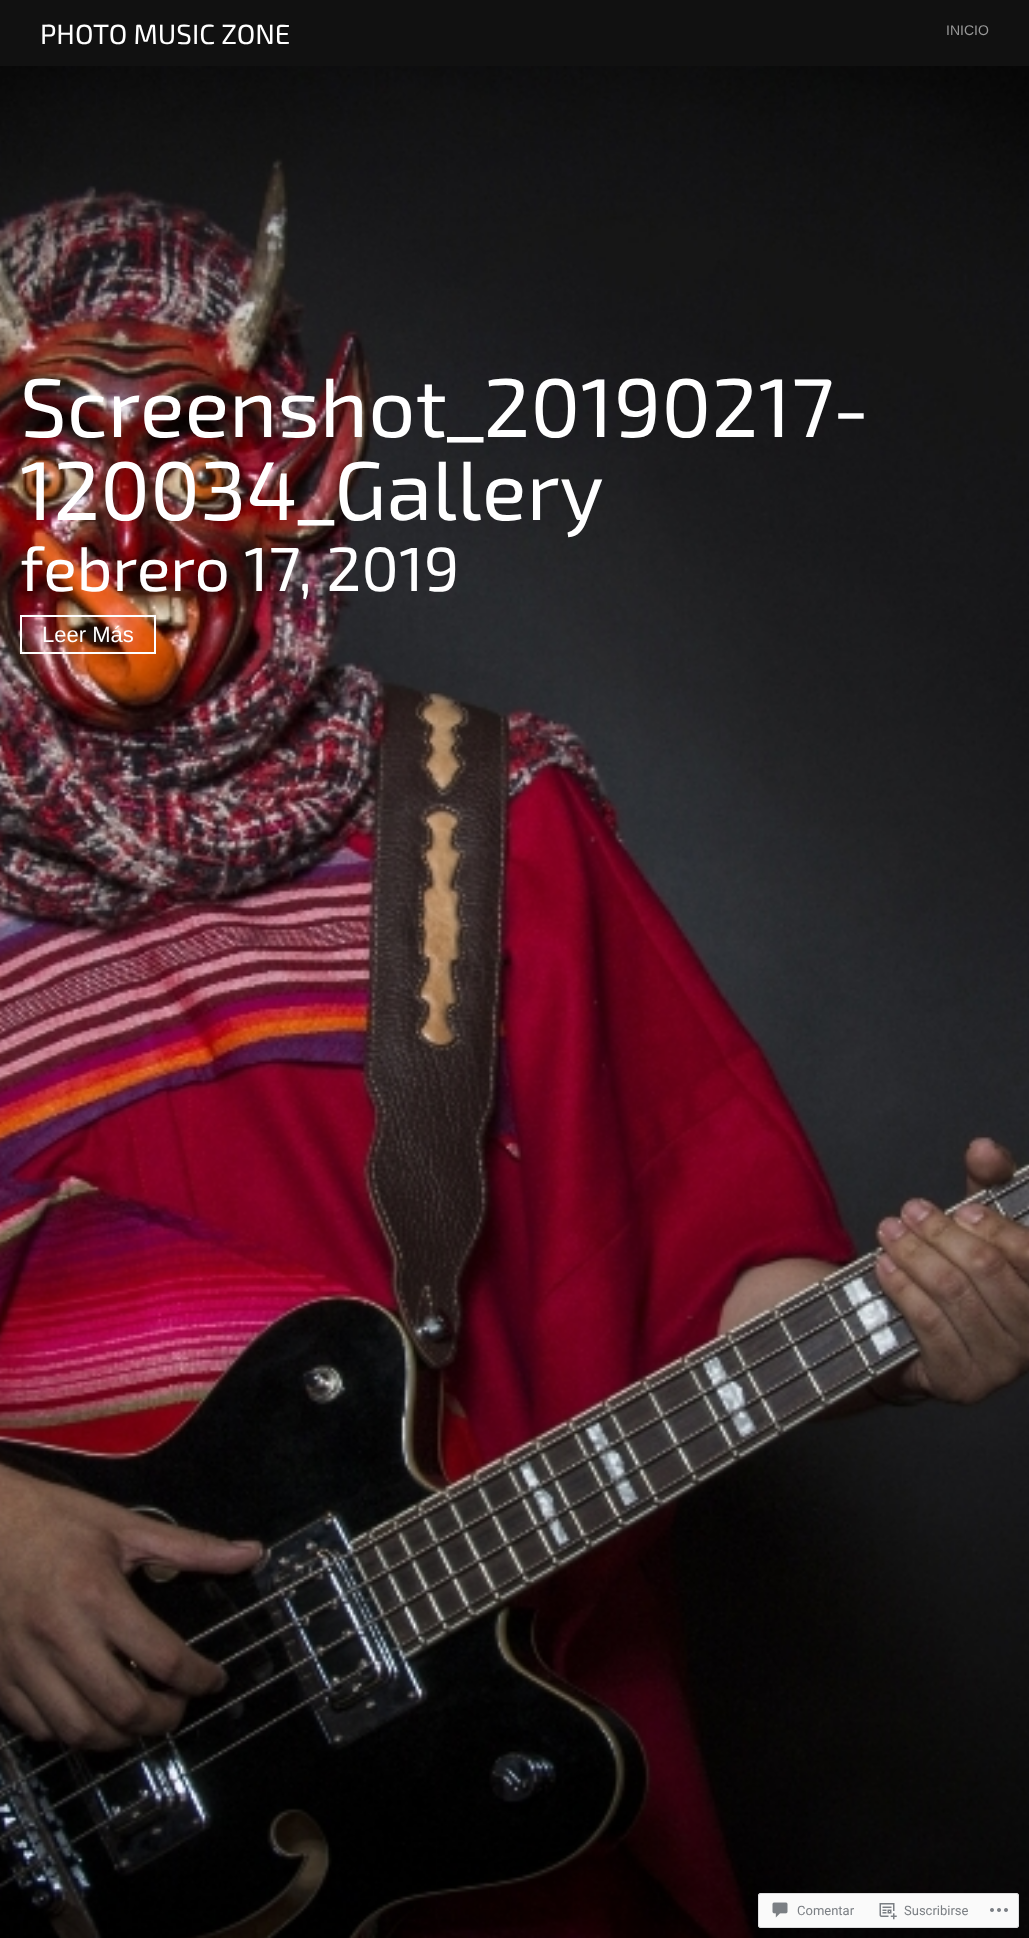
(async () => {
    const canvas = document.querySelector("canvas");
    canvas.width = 1029;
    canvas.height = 1938;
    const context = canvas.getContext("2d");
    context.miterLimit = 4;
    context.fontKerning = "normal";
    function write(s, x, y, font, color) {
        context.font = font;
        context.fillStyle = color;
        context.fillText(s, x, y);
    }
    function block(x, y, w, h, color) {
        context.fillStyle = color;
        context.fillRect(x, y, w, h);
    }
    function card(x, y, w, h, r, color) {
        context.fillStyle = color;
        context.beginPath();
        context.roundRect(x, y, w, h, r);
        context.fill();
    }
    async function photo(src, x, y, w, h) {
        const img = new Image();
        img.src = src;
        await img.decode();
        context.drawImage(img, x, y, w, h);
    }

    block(0, 0, 1029, 1938, "rgb(255, 255, 255)");
    block(0, 0, 1029, 66, "rgb(17, 17, 17)");
    write("PHOTO MUSIC ZONE", 40, 44, "27.75px 'Exo 2'", "rgb(255, 255, 255)");
    write("INICIO", 946, 35, "14px Arimo", "rgb(153, 153, 153)");
    await photo("media/1.png", 0, 66, 1029, 1872);
    write("Screenshot_20190217-", 20, 437, "83.25px 'Exo 2'", "rgb(255, 255, 255)");
    write("120034_Gallery", 20, 520, "83.25px 'Exo 2'", "rgb(255, 255, 255)");
    write("febrero 17, 2019", 20, 591, "62.5px 'Exo 2'", "rgb(255, 255, 255)");
    context.strokeStyle = "rgb(255, 255, 255)";
    context.lineWidth = 2;
    context.strokeRect(21, 616, 134, 37);
    write("Leer Más", 42, 642, "22px Arimo", "rgb(255, 255, 255)");
    card(758, 1893, 261, 35, 3, "rgba(255, 255, 255, 0.98)");
    context.beginPath();
    context.roundRect(758.5, 1893.5, 260, 34, 2.5);
    context.strokeStyle = "rgba(220, 220, 222, 0.98)";
    context.lineWidth = 1;
    context.stroke();
    await photo("media/2.png", 772, 1902, 16, 16);
    write("Comentar", 797, 1915, "13px Roboto", "rgb(123, 127, 132)");
    await photo("media/3.png", 879, 1903, 18, 17);
    write("Suscribirse", 904, 1915, "13px Roboto", "rgb(123, 127, 132)");
    await photo("media/4.png", 990, 1908, 18, 4);
})();
